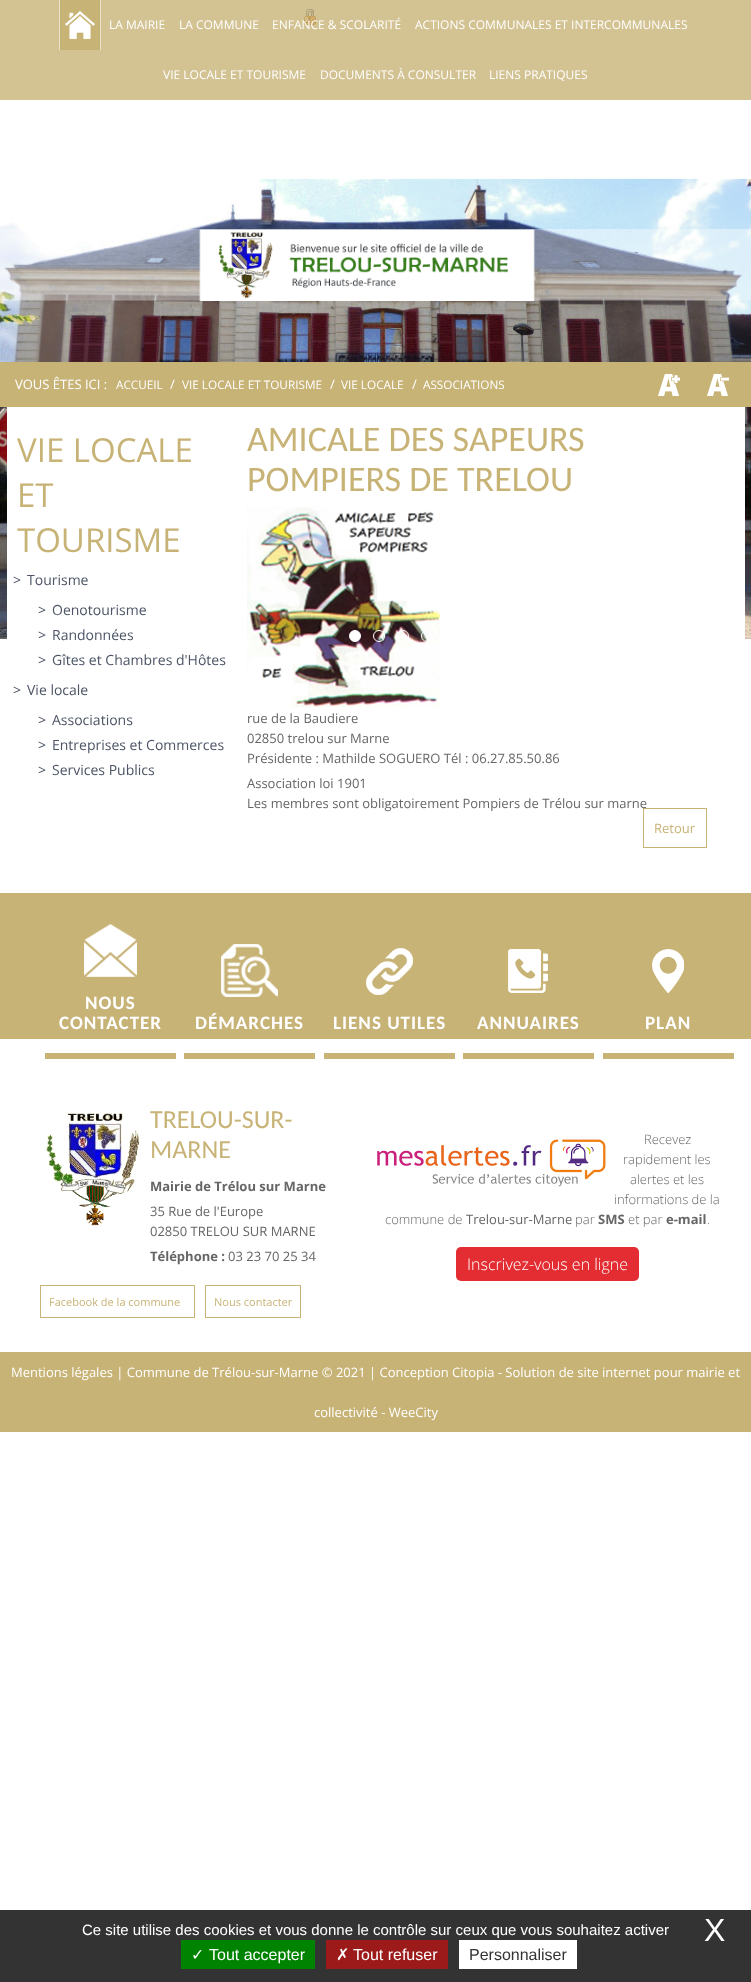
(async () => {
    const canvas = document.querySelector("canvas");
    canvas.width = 751;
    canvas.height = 1982;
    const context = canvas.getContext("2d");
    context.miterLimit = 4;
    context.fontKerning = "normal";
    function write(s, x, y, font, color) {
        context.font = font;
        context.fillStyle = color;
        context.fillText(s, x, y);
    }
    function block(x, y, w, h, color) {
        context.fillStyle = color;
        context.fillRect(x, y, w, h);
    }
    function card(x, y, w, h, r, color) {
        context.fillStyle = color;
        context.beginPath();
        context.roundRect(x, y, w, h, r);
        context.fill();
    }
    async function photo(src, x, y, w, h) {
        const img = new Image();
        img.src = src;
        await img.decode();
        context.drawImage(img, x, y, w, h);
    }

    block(0, 0, 751, 1982, "rgb(255, 255, 255)");
    block(0, 0, 751, 100, "rgb(211, 194, 146)");
    await photo("media/1.png", 304, 9, 12, 16);
    block(60, 0, 40, 50, "rgb(200, 179, 119)");
    await photo("media/2.png", 65, 11, 30, 28);
    block(100, 0, 1, 50, "rgb(233, 225, 201)");
    block(59, 0, 1, 50, "rgb(233, 225, 201)");
    write("LA MAIRIE", 109, 29, "12px Open Sans", "rgb(255, 255, 255)");
    write("LA COMMUNE", 179, 29, "12px Open Sans", "rgb(255, 255, 255)");
    write("ENFANCE & SCOLARITÉ", 272, 29, "12px Open Sans", "rgb(255, 255, 255)");
    write("ACTIONS COMMUNALES ET INTERCOMMUNALES", 415, 29, "12px Open Sans", "rgb(255, 255, 255)");
    write("VIE LOCALE ET TOURISME", 163, 79, "12px Open Sans", "rgb(255, 255, 255)");
    write("DOCUMENTS À CONSULTER", 320, 79, "12px Open Sans", "rgb(255, 255, 255)");
    write("LIENS PRATIQUES", 489, 79, "12px Open Sans", "rgb(255, 255, 255)");
    await photo("media/3.png", 0, 178, 751, 461);
    block(7, 407, 738, 232, "rgb(255, 255, 255)");
    await photo("media/7.png", 247, 507, 193, 200);
    context.beginPath();
    context.arc(355, 636, 5.5, 0, Math.PI * 2);
    context.fill();
    context.strokeStyle = "rgb(255, 255, 255)";
    context.stroke();
    context.beginPath();
    context.arc(379, 636, 5.5, 0, Math.PI * 2);
    context.stroke();
    context.beginPath();
    context.arc(403, 636, 5.5, 0, Math.PI * 2);
    context.stroke();
    context.beginPath();
    context.arc(427, 636, 5.5, 0, Math.PI * 2);
    context.stroke();
    await photo("media/4.png", 0, 229, 751, 72);
    block(0, 362, 751, 45, "rgb(200, 179, 119)");
    write("VOUS ÊTES ICI :", 15, 389, "13px Open Sans", "rgb(255, 255, 255)");
    write("ACCUEIL", 116, 389, "11.75px Open Sans", "rgb(255, 255, 255)");
    write("/", 170, 389, "13px Open Sans", "rgb(255, 255, 255)");
    write("VIE LOCALE ET TOURISME", 182, 389, "11.75px Open Sans", "rgb(255, 255, 255)");
    write("/", 330, 389, "13px Open Sans", "rgb(255, 255, 255)");
    write("VIE LOCALE", 341, 389, "11.75px Open Sans", "rgb(255, 255, 255)");
    write("/", 412, 389, "13px Open Sans", "rgb(255, 255, 255)");
    write("ASSOCIATIONS", 423, 389, "11.75px Open Sans", "rgb(255, 255, 255)");
    await photo("media/5.png", 658, 374, 22, 22);
    await photo("media/6.png", 707, 374, 22, 22);
    write("VIE LOCALE", 17, 462, "33px Open Sans", "rgb(200, 179, 119)");
    write("ET", 17, 507, "33px Open Sans", "rgb(200, 179, 119)");
    write("TOURISME", 17, 552, "33px Open Sans", "rgb(200, 179, 119)");
    write(">", 13, 585, "14px Open Sans", "rgb(76, 84, 101)");
    write("Tourisme", 27, 585, "14px Open Sans", "rgb(76, 84, 101)");
    write(">", 38, 615, "14px Open Sans", "rgb(76, 84, 101)");
    write("Oenotourisme", 52, 615, "14px Open Sans", "rgb(76, 84, 101)");
    write(">", 38, 640, "14px Open Sans", "rgb(76, 84, 101)");
    write("Randonnées", 52, 640, "14px Open Sans", "rgb(76, 84, 101)");
    write(">", 38, 665, "14px Open Sans", "rgb(76, 84, 101)");
    write("Gîtes et Chambres d'Hôtes", 52, 665, "14px Open Sans", "rgb(76, 84, 101)");
    write(">", 13, 695, "14px Open Sans", "rgb(76, 84, 101)");
    write("Vie locale", 27, 695, "14px Open Sans", "rgb(76, 84, 101)");
    write(">", 38, 725, "14px Open Sans", "rgb(76, 84, 101)");
    write("Associations", 52, 725, "14px Open Sans", "rgb(76, 84, 101)");
    write(">", 38, 750, "14px Open Sans", "rgb(76, 84, 101)");
    write("Entreprises et Commerces", 52, 750, "14px Open Sans", "rgb(76, 84, 101)");
    write(">", 38, 775, "14px Open Sans", "rgb(76, 84, 101)");
    write("Services Publics", 52, 775, "14px Open Sans", "rgb(76, 84, 101)");
    write("AMICALE DES SAPEURS", 247, 451, "36px Carlito", "rgb(200, 179, 119)");
    write("POMPIERS DE TRELOU", 247, 491, "36px Carlito", "rgb(200, 179, 119)");
    write("rue de la Baudiere", 247, 723, "13px Open Sans", "rgb(102, 102, 102)");
    write("02850 trelou sur Marne", 247, 743, "13px Open Sans", "rgb(102, 102, 102)");
    write("Présidente : Mathilde SOGUERO Tél : 06.27.85.50.86", 247, 763, "13px Open Sans", "rgb(102, 102, 102)");
    write("Association loi 1901", 247, 788, "13px Open Sans", "rgb(102, 102, 102)");
    context.strokeStyle = "rgb(200, 179, 119)";
    context.strokeRect(643.5, 808.5, 63, 39);
    write("Les membres sont obligatoirement Pompiers de Trélou sur marne", 247, 808, "13px Open Sans", "rgb(102, 102, 102)");
    write("Retour", 654, 833, "13px Open Sans", "rgb(200, 179, 119)");
    block(0, 893, 751, 146, "rgb(200, 179, 119)");
    await photo("media/8.png", 84, 924, 53, 53);
    block(45, 1053, 131, 6, "rgb(200, 179, 118)");
    context.letterSpacing = "1px";
    write("NOUS", 85, 1009, "bold 19px Carlito", "rgb(255, 255, 255)");
    write("CONTACTER", 59, 1029, "bold 19px Carlito", "rgb(255, 255, 255)");
    await photo("media/9.png", 221, 944, 57, 53);
    block(184, 1053, 131, 6, "rgb(200, 179, 118)");
    write("DÉMARCHES", 195, 1029, "bold 19px Carlito", "rgb(255, 255, 255)");
    await photo("media/10.png", 366, 948, 47, 47);
    block(324, 1053, 131, 6, "rgb(200, 179, 118)");
    write("LIENS UTILES", 333, 1029, "bold 19px Carlito", "rgb(255, 255, 255)");
    await photo("media/11.png", 508, 949, 40, 44);
    block(463, 1053, 131, 6, "rgb(200, 179, 118)");
    write("ANNUAIRES", 477, 1029, "bold 19px Carlito", "rgb(255, 255, 255)");
    await photo("media/12.png", 652, 949, 32, 44);
    block(603, 1053, 131, 6, "rgb(200, 179, 118)");
    write("PLAN", 645, 1029, "bold 19px Carlito", "rgb(255, 255, 255)");
    await photo("media/13.png", 45, 1113, 95, 113);
    context.letterSpacing = "0px";
    write("TRELOU-SUR-", 150, 1128, "26px Carlito", "rgb(200, 179, 119)");
    write("MARNE", 150, 1158, "26px Carlito", "rgb(200, 179, 119)");
    write("Mairie de Trélou sur Marne", 150, 1191, "bold 13px Open Sans", "rgb(102, 102, 102)");
    write("35 Rue de l'Europe", 150, 1216, "13px Open Sans", "rgb(102, 102, 102)");
    write("02850 TRELOU SUR MARNE", 150, 1236, "13px Open Sans", "rgb(102, 102, 102)");
    write("Téléphone :", 150, 1261, "bold 13px Open Sans", "rgb(102, 102, 102)");
    write("03 23 70 25 34", 228, 1261, "13px Open Sans", "rgb(102, 102, 102)");
    context.strokeRect(40.5, 1285.5, 154, 32);
    write("Facebook de la commune", 49, 1306, "11px Open Sans", "rgb(200, 179, 119)");
    context.strokeRect(205.5, 1285.5, 95, 32);
    write("Nous contacter", 214, 1306, "11px Open Sans", "rgb(200, 179, 119)");
    await photo("media/14.png", 377, 1139, 229, 48);
    write("Recevez", 644, 1144, "300 13px Open Sans", "rgb(102, 102, 102)");
    write("rapidement les", 623, 1164, "300 13px Open Sans", "rgb(102, 102, 102)");
    write("alertes et les", 630, 1184, "300 13px Open Sans", "rgb(102, 102, 102)");
    write("informations de la", 614, 1204, "300 13px Open Sans", "rgb(102, 102, 102)");
    write("commune de", 385, 1224, "300 13px Open Sans", "rgb(102, 102, 102)");
    write("Trelou-sur-Marne", 466, 1224, "13px Open Sans", "rgb(102, 102, 102)");
    write("par", 575, 1224, "300 13px Open Sans", "rgb(102, 102, 102)");
    write("SMS", 598, 1224, "bold 13px Open Sans", "rgb(102, 102, 102)");
    write("et par", 628, 1224, "300 13px Open Sans", "rgb(102, 102, 102)");
    write("e-mail", 666, 1224, "bold 13px Open Sans", "rgb(102, 102, 102)");
    write(".", 707, 1224, "300 13px Open Sans", "rgb(102, 102, 102)");
    card(456, 1247, 183, 34, 5, "rgb(227, 45, 50)");
    write("Inscrivez-vous en ligne", 467, 1270, "300 16px Open Sans", "rgb(255, 255, 255)");
    block(0, 1352, 751, 80, "rgb(200, 179, 118)");
    write("Mentions légales | Commune de Trélou-sur-Marne © 2021 | Conception Citopia - Solution de site internet pour mairie et", 11, 1377, "13px Open Sans", "rgb(255, 255, 255)");
    write("collectivité - WeeCity", 314, 1417, "13px Open Sans", "rgb(255, 255, 255)");
    block(0, 1910, 751, 72, "rgb(51, 51, 51)");
    write("Ce site utilise des cookies et vous donne le contrôle sur ceux que vous souhaitez activer", 82, 1935, "15px Liberation Sans", "rgb(255, 255, 255)");
    write("X", 704, 1941, "32px Liberation Sans", "rgb(255, 255, 255)");
    block(181, 1940, 134, 29, "rgb(0, 131, 0)");
    write("✓", 191, 1960, "16px DejaVu Sans", "rgb(255, 255, 255)");
    write("Tout accepter", 209, 1960, "16px Liberation Sans", "rgb(255, 255, 255)");
    block(326, 1940, 122, 29, "rgb(156, 26, 26)");
    write("✗", 336, 1960, "16px DejaVu Sans", "rgb(255, 255, 255)");
    write("Tout refuser", 353, 1960, "16px Liberation Sans", "rgb(255, 255, 255)");
    block(459, 1940, 118, 29, "rgb(255, 255, 255)");
    write("Personnaliser", 469, 1960, "16px Liberation Sans", "rgb(51, 51, 51)");
})();
